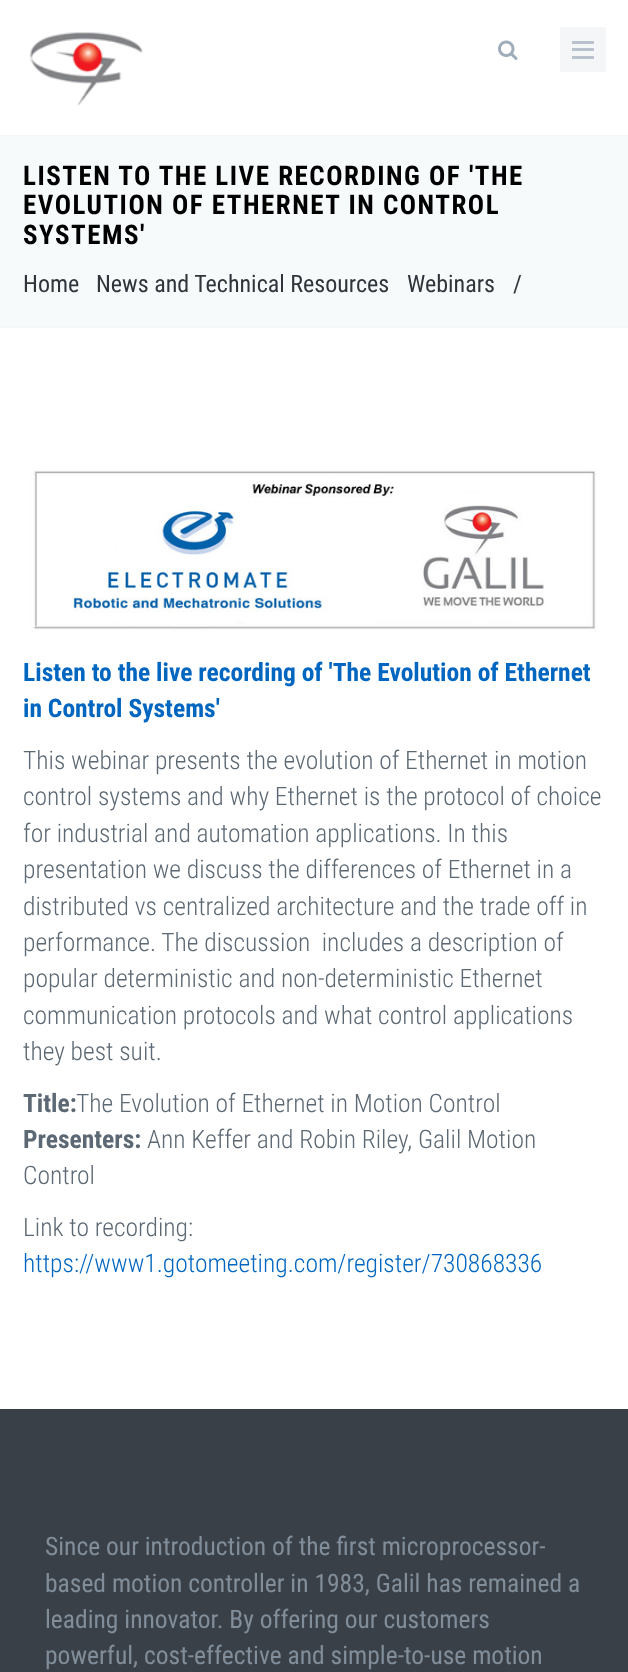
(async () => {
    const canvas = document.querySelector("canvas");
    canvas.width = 628;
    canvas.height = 1672;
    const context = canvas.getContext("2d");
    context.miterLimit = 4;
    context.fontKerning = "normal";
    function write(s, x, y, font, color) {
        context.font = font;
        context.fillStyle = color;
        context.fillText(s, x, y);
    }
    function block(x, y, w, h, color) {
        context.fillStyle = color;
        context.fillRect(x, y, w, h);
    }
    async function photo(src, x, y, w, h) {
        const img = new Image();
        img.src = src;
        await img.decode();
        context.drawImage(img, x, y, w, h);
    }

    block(0, 0, 628, 1672, "rgb(255, 255, 255)");
    await photo("media/1.png", 29, 32, 114, 74);
    await photo("media/2.png", 498, 40, 20, 20);
    block(560, 27, 46, 45, "rgb(245, 246, 248)");
    block(572, 41, 22, 3, "rgb(186, 195, 205)");
    block(572, 48, 22, 3, "rgb(186, 195, 205)");
    block(572, 56, 22, 3, "rgb(186, 195, 205)");
    block(0, 137, 628, 189, "rgb(247, 250, 251)");
    block(0, 135, 628, 2, "rgb(244, 248, 249)");
    block(0, 326, 628, 2, "rgb(244, 248, 249)");
    context.letterSpacing = "1.5px";
    write("LISTEN TO THE LIVE RECORDING OF 'THE", 23, 185, "bold 27px Roboto Condensed", "rgb(0, 0, 0)");
    write("EVOLUTION OF ETHERNET IN CONTROL", 23, 214, "bold 27px Roboto Condensed", "rgb(0, 0, 0)");
    write("SYSTEMS'", 23, 244, "bold 27px Roboto Condensed", "rgb(0, 0, 0)");
    context.letterSpacing = "0px";
    write("Home", 23, 292, "24px Roboto Condensed", "rgb(47, 53, 59)");
    write("News and Technical Resources", 96, 292, "24px Roboto Condensed", "rgb(47, 53, 59)");
    write("Webinars", 407, 292, "24px Roboto Condensed", "rgb(47, 53, 59)");
    write("/", 513, 292, "24px Roboto Condensed", "rgb(47, 53, 59)");
    await photo("media/3.png", 30, 469, 569, 163);
    write("Listen to the live recording of 'The Evolution of Ethernet", 23, 681, "bold 25.5px Roboto Condensed", "rgb(0, 102, 192)");
    write("in Control Systems'", 23, 717, "bold 25.5px Roboto Condensed", "rgb(0, 102, 192)");
    write("This webinar presents the evolution of Ethernet in motion", 23, 769, "300 25.5px Roboto Condensed", "rgb(92, 104, 115)");
    write("control systems and why Ethernet is the protocol of choice", 23, 805, "300 25.5px Roboto Condensed", "rgb(92, 104, 115)");
    write("for industrial and automation applications. In this", 23, 842, "300 25.5px Roboto Condensed", "rgb(92, 104, 115)");
    write("presentation we discuss the differences of Ethernet in a", 23, 878, "300 25.5px Roboto Condensed", "rgb(92, 104, 115)");
    write("distributed vs centralized architecture and the trade off in", 23, 915, "300 25.5px Roboto Condensed", "rgb(92, 104, 115)");
    write("performance. The discussion  includes a description of", 23, 951, "300 25.5px Roboto Condensed", "rgb(92, 104, 115)");
    write("popular deterministic and non-deterministic Ethernet", 23, 987, "300 25.5px Roboto Condensed", "rgb(92, 104, 115)");
    write("communication protocols and what control applications", 23, 1024, "300 25.5px Roboto Condensed", "rgb(92, 104, 115)");
    write("they best suit.", 23, 1060, "300 25.5px Roboto Condensed", "rgb(92, 104, 115)");
    write("Title:", 23, 1112, "bold 25.5px Roboto Condensed", "rgb(92, 104, 115)");
    write("The Evolution of Ethernet in Motion Control", 76, 1112, "300 25.5px Roboto Condensed", "rgb(92, 104, 115)");
    write("Presenters:", 23, 1148, "bold 25.5px Roboto Condensed", "rgb(92, 104, 115)");
    write("Ann Keffer and Robin Riley, Galil Motion", 147, 1148, "300 25.5px Roboto Condensed", "rgb(92, 104, 115)");
    write("Control", 23, 1184, "300 25.5px Roboto Condensed", "rgb(92, 104, 115)");
    write("Link to recording:", 23, 1236, "300 25.5px Roboto Condensed", "rgb(92, 104, 115)");
    write("https://www1.gotomeeting.com/register/730868336", 23, 1272, "300 25.5px Roboto Condensed", "rgb(0, 102, 192)");
    block(0, 1409, 628, 263, "rgb(57, 64, 72)");
    write("Since our introduction of the first microprocessor-", 45, 1555, "25.5px Roboto Condensed", "rgb(129, 142, 154)");
    write("based motion controller in 1983, Galil has remained a", 45, 1592, "25.5px Roboto Condensed", "rgb(129, 142, 154)");
    write("leading innovator. By offering our customers", 45, 1628, "25.5px Roboto Condensed", "rgb(129, 142, 154)");
    write("powerful, cost-effective and simple-to-use motion", 45, 1664, "25.5px Roboto Condensed", "rgb(129, 142, 154)");
})();
